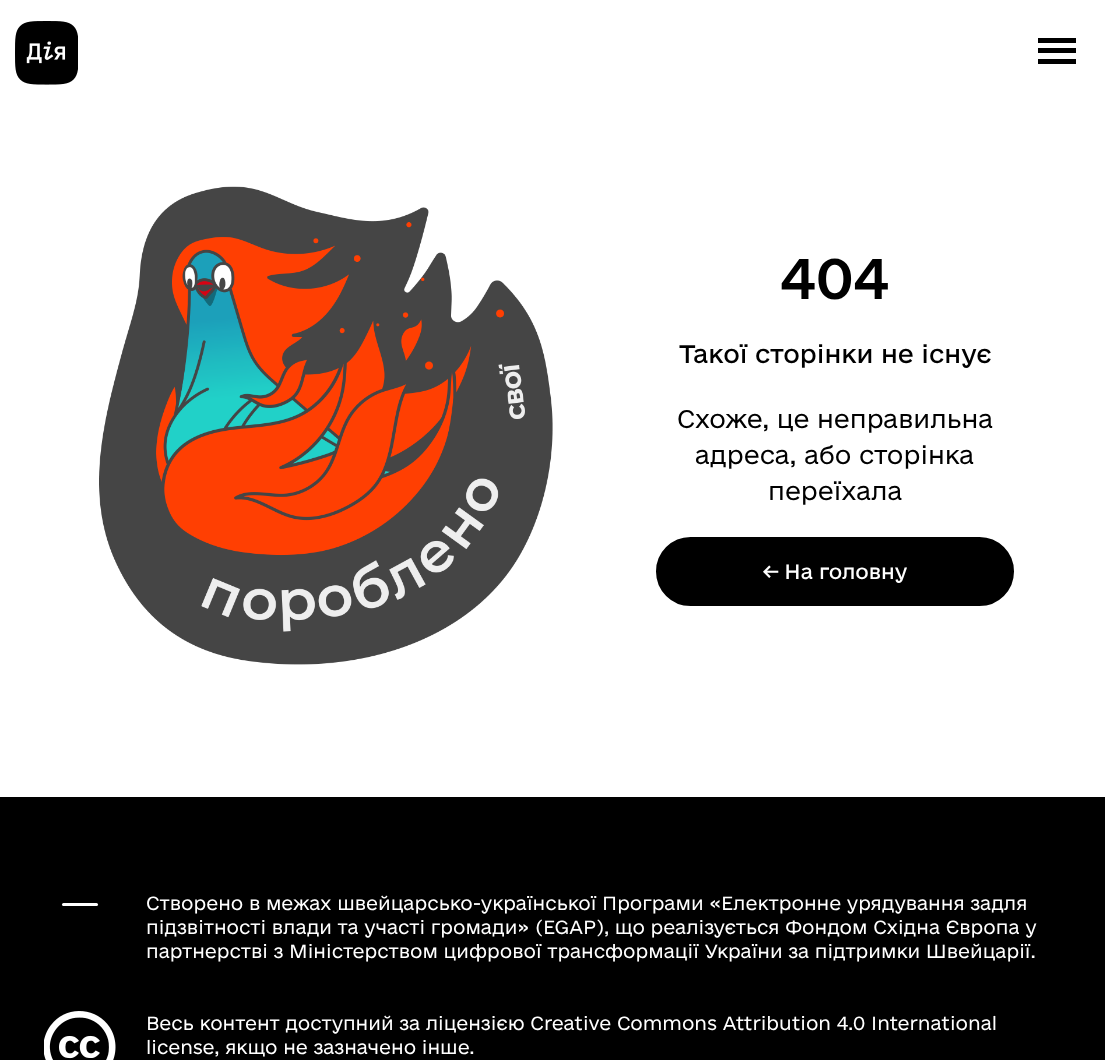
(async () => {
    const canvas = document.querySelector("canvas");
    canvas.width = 1105;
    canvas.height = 1060;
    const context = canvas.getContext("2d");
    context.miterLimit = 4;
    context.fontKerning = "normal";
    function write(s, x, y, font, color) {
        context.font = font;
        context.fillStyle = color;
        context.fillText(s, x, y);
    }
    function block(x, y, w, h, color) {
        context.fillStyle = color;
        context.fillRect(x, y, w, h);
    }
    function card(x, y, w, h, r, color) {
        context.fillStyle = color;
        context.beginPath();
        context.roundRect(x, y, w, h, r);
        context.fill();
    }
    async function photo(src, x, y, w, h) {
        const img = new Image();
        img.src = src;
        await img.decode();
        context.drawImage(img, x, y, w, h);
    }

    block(0, 0, 1105, 1060, "rgb(255, 255, 255)");
    await photo("media/1.png", 15, 21, 63, 64);
    block(1038, 38, 38, 5, "rgb(0, 0, 0)");
    block(1038, 48, 38, 5, "rgb(0, 0, 0)");
    block(1038, 59, 38, 5, "rgb(0, 0, 0)");
    await photo("media/2.png", 99, 186, 454, 479);
    write("404", 780, 299, "500 54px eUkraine", "rgb(0, 0, 0)");
    write("Такої сторінки не існує", 679, 363, "24px eUkraine", "rgb(0, 0, 0)");
    write("Схоже, це неправильна", 677, 428, "300 24px eUkraine", "rgb(0, 0, 0)");
    write("адреса, або сторінка", 695, 464, "300 24px eUkraine", "rgb(0, 0, 0)");
    write("переїхала", 768, 500, "300 24px eUkraine", "rgb(0, 0, 0)");
    context.beginPath();
    context.roundRect(657.5, 538.5, 355, 66, 33);
    context.fill();
    context.strokeStyle = "rgb(0, 0, 0)";
    context.lineWidth = 3;
    context.stroke();
    write("← На головну", 763, 579, "19.5px eUkraine", "rgb(255, 255, 255)");
    block(0, 797, 1105, 263, "rgb(0, 0, 0)");
    card(62, 903, 36, 3, 1.5, "rgb(255, 255, 255)");
    write("Створено в межах швейцарсько-української Програми «Електронне урядування задля", 146, 910, "300 18px eUkraine", "rgb(255, 255, 255)");
    write("підзвітності влади та участі громади» (EGAP), що реалізується Фондом Східна Європа у", 146, 934, "300 18px eUkraine", "rgb(255, 255, 255)");
    write("партнерстві з Міністерством цифрової трансформації України за підтримки Швейцарії.", 146, 958, "300 18px eUkraine", "rgb(255, 255, 255)");
    await photo("media/3.png", 44, 1011, 72, 49);
    write("Весь контент доступний за ліцензією Creative Commons Attribution 4.0 International", 146, 1030, "300 18px eUkraine", "rgb(255, 255, 255)");
    write("license, якщо не зазначено інше.", 146, 1054, "300 18px eUkraine", "rgb(255, 255, 255)");
})();
